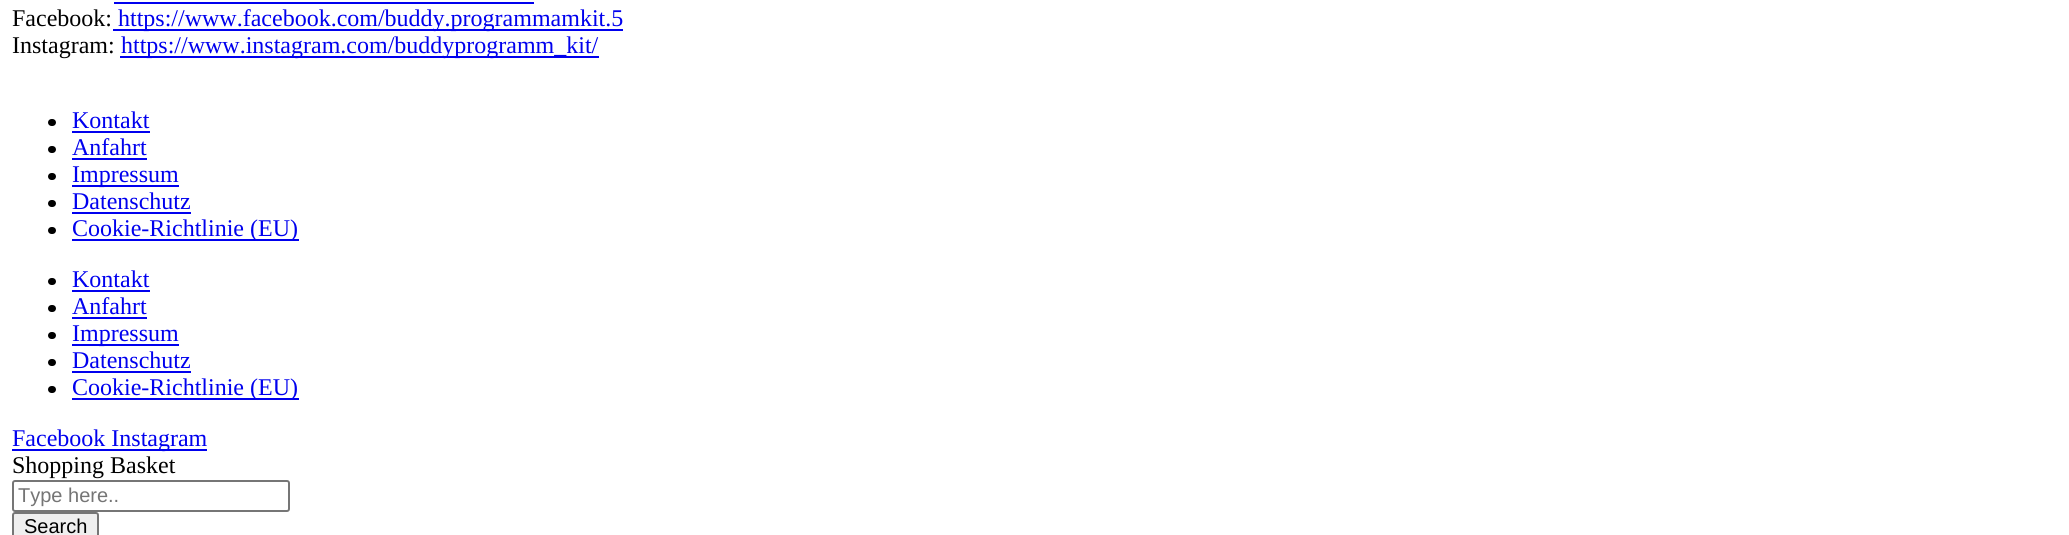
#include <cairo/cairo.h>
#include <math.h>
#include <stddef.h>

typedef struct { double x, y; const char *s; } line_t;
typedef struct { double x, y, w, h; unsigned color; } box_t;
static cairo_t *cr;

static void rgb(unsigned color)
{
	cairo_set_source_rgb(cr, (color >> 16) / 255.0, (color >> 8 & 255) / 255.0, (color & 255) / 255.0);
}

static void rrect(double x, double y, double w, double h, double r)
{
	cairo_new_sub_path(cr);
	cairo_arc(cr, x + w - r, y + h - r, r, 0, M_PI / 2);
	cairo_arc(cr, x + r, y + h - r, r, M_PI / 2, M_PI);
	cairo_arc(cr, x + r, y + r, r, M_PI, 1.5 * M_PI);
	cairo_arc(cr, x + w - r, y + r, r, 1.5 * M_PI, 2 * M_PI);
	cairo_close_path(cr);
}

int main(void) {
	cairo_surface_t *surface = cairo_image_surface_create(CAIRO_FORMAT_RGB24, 2069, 535);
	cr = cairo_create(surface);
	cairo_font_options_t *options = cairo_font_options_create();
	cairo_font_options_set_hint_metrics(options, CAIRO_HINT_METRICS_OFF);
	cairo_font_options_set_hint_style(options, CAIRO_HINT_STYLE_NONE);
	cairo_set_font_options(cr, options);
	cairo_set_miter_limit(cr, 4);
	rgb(0xffffff);
	cairo_paint(cr);
	{
		static const box_t items[] = {
			{114, 2, 420, 2, 0x0000ee},
			{113, 29, 510, 2, 0x0000ee},
			{120, 56, 479, 2, 0x0000ee},
		};
		for (size_t i = 0; i < sizeof items / sizeof *items; i++) {
			rgb(items[i].color);
			cairo_rectangle(cr, items[i].x, items[i].y, items[i].w, items[i].h);
			cairo_fill(cr);
		}
	}
	rgb(0x000000);
	rrect(48, 119, 8, 7, 3.5);
	cairo_fill(cr);
	rgb(0x0000ee);
	cairo_rectangle(cr, 72, 131, 78, 2);
	cairo_fill(cr);
	rgb(0x000000);
	rrect(48, 146, 8, 7, 3.5);
	cairo_fill(cr);
	rgb(0x0000ee);
	cairo_rectangle(cr, 72, 158, 75, 2);
	cairo_fill(cr);
	rgb(0x000000);
	rrect(48, 173, 8, 7, 3.5);
	cairo_fill(cr);
	rgb(0x0000ee);
	cairo_rectangle(cr, 72, 185, 107, 2);
	cairo_fill(cr);
	rgb(0x000000);
	rrect(48, 200, 8, 7, 3.5);
	cairo_fill(cr);
	rgb(0x0000ee);
	cairo_rectangle(cr, 72, 212, 119, 2);
	cairo_fill(cr);
	rgb(0x000000);
	rrect(48, 227, 8, 7, 3.5);
	cairo_fill(cr);
	rgb(0x0000ee);
	cairo_rectangle(cr, 72, 239, 227, 2);
	cairo_fill(cr);
	rgb(0x000000);
	rrect(48, 278, 8, 7, 3.5);
	cairo_fill(cr);
	rgb(0x0000ee);
	cairo_rectangle(cr, 72, 290, 78, 2);
	cairo_fill(cr);
	rgb(0x000000);
	rrect(48, 305, 8, 7, 3.5);
	cairo_fill(cr);
	rgb(0x0000ee);
	cairo_rectangle(cr, 72, 317, 75, 2);
	cairo_fill(cr);
	rgb(0x000000);
	rrect(48, 332, 8, 7, 3.5);
	cairo_fill(cr);
	rgb(0x0000ee);
	cairo_rectangle(cr, 72, 344, 107, 2);
	cairo_fill(cr);
	rgb(0x000000);
	rrect(48, 359, 8, 7, 3.5);
	cairo_fill(cr);
	rgb(0x0000ee);
	cairo_rectangle(cr, 72, 371, 119, 2);
	cairo_fill(cr);
	rgb(0x000000);
	rrect(48, 386, 8, 7, 3.5);
	cairo_fill(cr);
	rgb(0x0000ee);
	cairo_rectangle(cr, 72, 398, 227, 2);
	cairo_fill(cr);
	cairo_rectangle(cr, 12, 449, 195, 2);
	cairo_fill(cr);
	rrect(13, 481, 276, 30, 2);
	rgb(0x767676);
	cairo_stroke(cr);
	rgb(0xefefef);
	rrect(13, 513, 85, 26, 2);
	cairo_fill_preserve(cr);
	rgb(0x767676);
	cairo_stroke(cr);
	cairo_select_font_face(cr, "Liberation Serif", CAIRO_FONT_SLANT_NORMAL, CAIRO_FONT_WEIGHT_NORMAL);
	cairo_set_font_size(cr, 24);
	rgb(0x000000);
	cairo_move_to(cr, 12, 26);
	cairo_show_text(cr, "Facebook:");
	rgb(0x0000ee);
	cairo_move_to(cr, 118, 26);
	cairo_show_text(cr, "https://www.facebook.com/buddy.programmamkit.5");
	rgb(0x000000);
	cairo_move_to(cr, 12, 53);
	cairo_show_text(cr, "Instagram:");
	rgb(0x0000ee);
	{
		static const line_t items[] = {
			{121, 53, "https://www.instagram.com/buddyprogramm_kit/"},
			{72, 128, "Kontakt"},
			{72, 155, "Anfahrt"},
			{72, 182, "Impressum"},
			{72, 209, "Datenschutz"},
			{72, 236, "Cookie-Richtlinie (EU)"},
			{72, 287, "Kontakt"},
			{72, 314, "Anfahrt"},
			{72, 341, "Impressum"},
			{72, 368, "Datenschutz"},
			{72, 395, "Cookie-Richtlinie (EU)"},
			{12, 446, "Facebook Instagram"},
		};
		for (size_t i = 0; i < sizeof items / sizeof *items; i++) {
			cairo_move_to(cr, items[i].x, items[i].y);
			cairo_show_text(cr, items[i].s);
		}
	}
	rgb(0x000000);
	cairo_move_to(cr, 12, 473);
	cairo_show_text(cr, "Shopping Basket");
	cairo_select_font_face(cr, "Liberation Sans", CAIRO_FONT_SLANT_NORMAL, CAIRO_FONT_WEIGHT_NORMAL);
	cairo_set_font_size(cr, 20);
	rgb(0x757575);
	cairo_move_to(cr, 18, 502);
	cairo_show_text(cr, "Type here..");
	rgb(0x000000);
	cairo_move_to(cr, 24, 533);
	cairo_show_text(cr, "Search");
	cairo_surface_write_to_png(surface, "page.png");
	cairo_font_options_destroy(options);
	cairo_destroy(cr);
	cairo_surface_destroy(surface);
	return 0;
}
